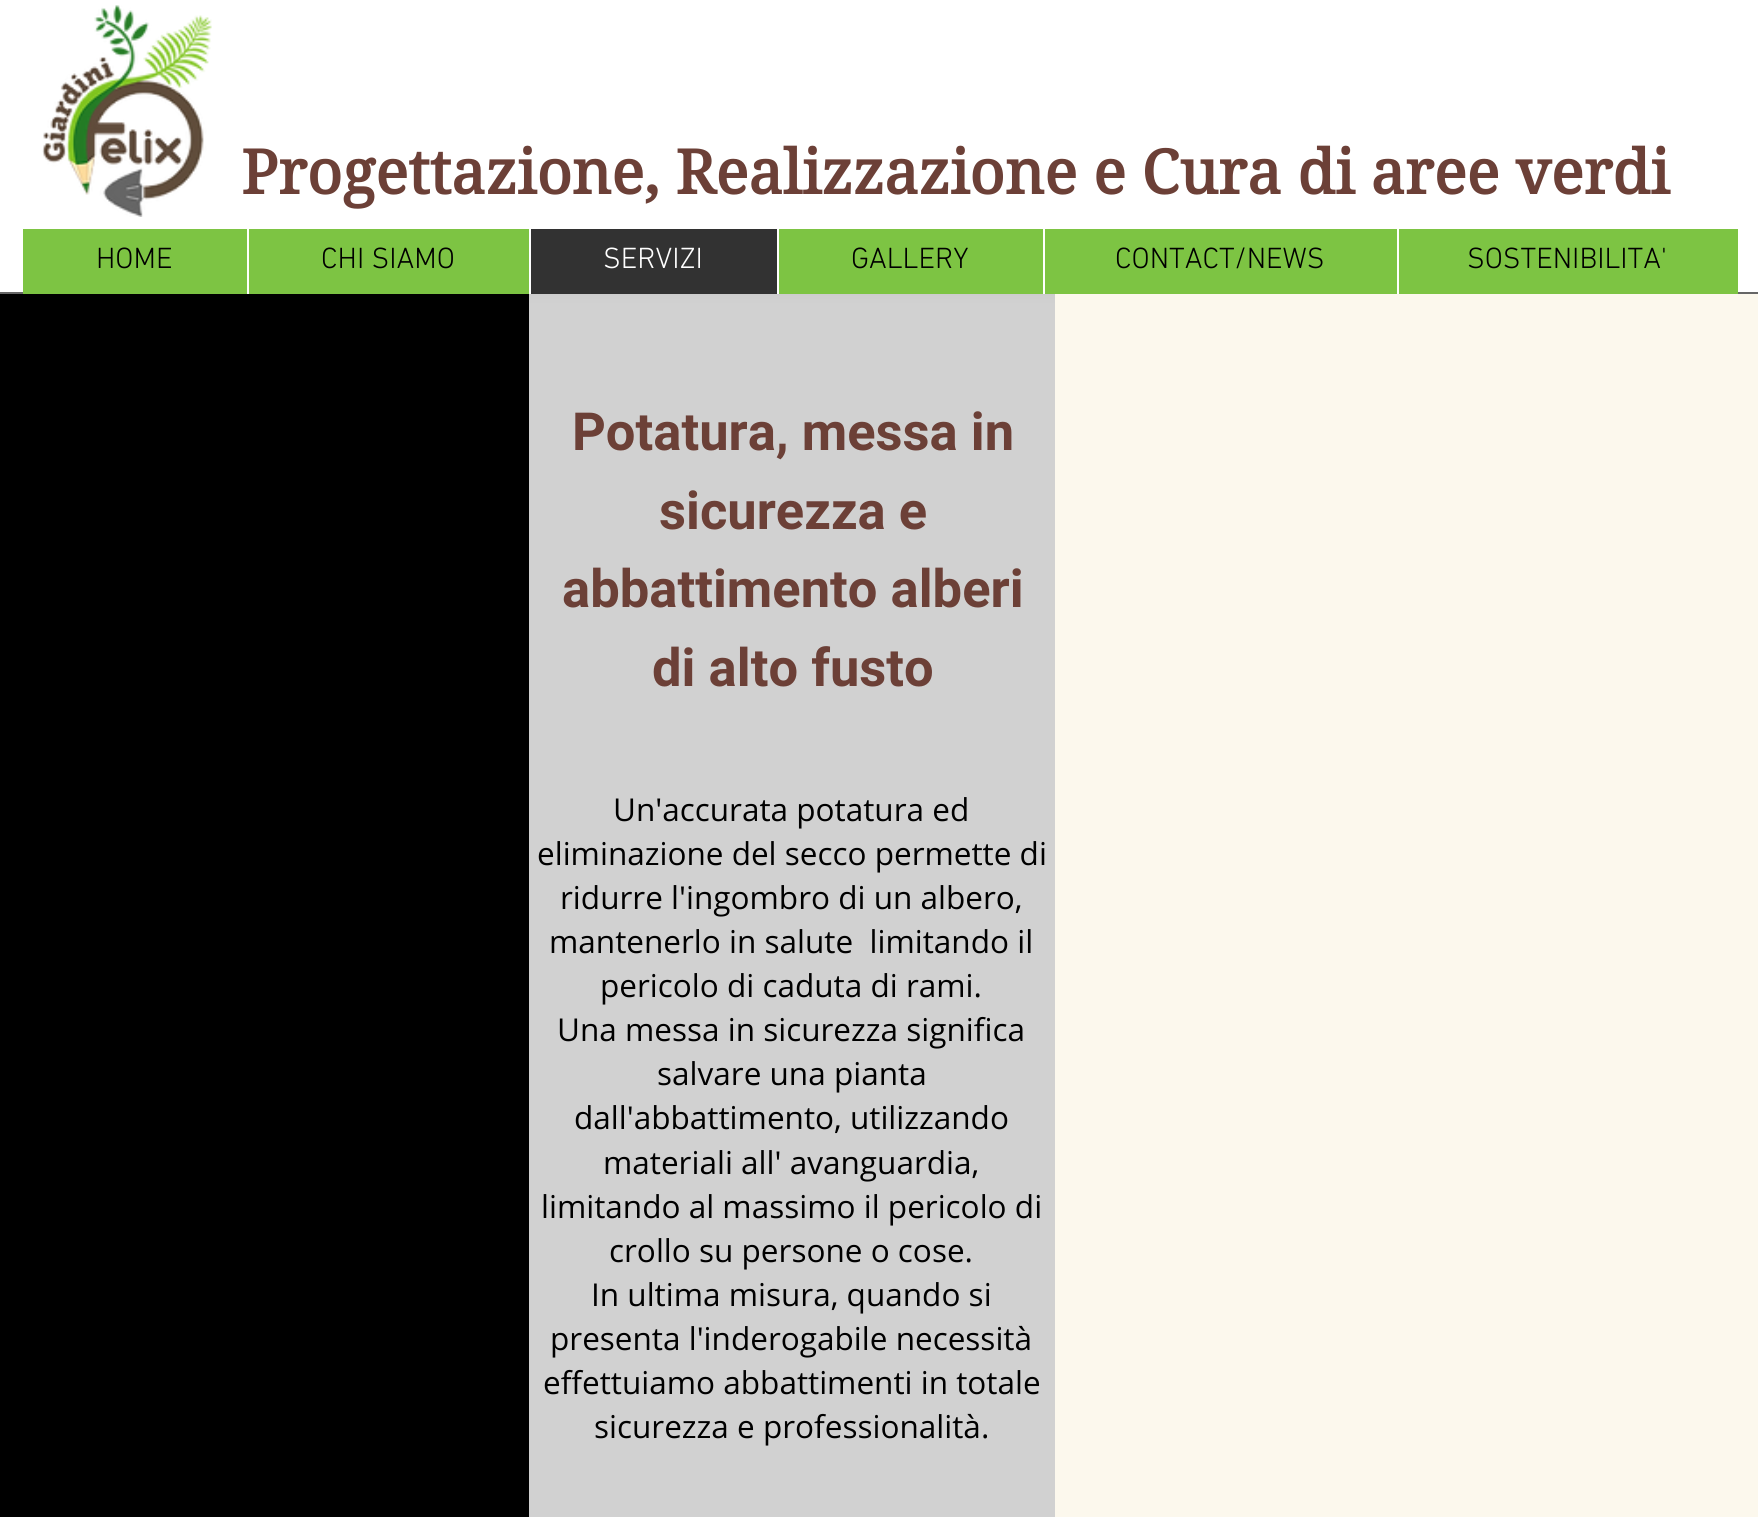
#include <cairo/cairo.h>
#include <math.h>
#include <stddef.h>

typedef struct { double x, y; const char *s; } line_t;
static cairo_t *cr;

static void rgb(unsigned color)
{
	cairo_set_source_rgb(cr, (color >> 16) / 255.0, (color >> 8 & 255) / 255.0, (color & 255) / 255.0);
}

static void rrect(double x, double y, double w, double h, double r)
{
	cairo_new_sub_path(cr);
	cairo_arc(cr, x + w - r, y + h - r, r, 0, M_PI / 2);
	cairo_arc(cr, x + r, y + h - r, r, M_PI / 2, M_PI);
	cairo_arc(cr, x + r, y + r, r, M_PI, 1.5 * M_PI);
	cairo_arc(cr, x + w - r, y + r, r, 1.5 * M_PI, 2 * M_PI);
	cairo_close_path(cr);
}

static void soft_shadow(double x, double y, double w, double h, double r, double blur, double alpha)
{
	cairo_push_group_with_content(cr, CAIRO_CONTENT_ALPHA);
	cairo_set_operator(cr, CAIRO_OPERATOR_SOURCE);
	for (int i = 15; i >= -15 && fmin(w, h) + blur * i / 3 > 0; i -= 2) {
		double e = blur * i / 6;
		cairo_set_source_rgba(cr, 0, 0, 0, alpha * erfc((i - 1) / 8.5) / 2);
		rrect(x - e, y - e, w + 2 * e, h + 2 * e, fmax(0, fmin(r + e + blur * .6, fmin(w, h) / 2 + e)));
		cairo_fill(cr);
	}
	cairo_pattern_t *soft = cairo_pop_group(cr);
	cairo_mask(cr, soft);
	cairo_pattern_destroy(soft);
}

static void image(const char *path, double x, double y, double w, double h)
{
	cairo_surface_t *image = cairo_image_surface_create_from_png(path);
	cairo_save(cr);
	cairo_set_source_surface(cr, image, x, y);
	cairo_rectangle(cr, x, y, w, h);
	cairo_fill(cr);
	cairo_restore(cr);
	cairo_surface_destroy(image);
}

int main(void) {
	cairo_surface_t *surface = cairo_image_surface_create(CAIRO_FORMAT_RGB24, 1758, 1517);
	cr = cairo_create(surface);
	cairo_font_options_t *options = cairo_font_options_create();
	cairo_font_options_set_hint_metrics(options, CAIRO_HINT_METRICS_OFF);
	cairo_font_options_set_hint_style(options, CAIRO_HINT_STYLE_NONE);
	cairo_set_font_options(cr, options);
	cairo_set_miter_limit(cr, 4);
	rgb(0x333333);
	cairo_paint(cr);
	rgb(0x000000);
	soft_shadow(0, 0, 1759, 294, 0, 4.5, 0.6);
	rgb(0xffffff);
	cairo_rectangle(cr, 0, 0, 1758, 292);
	cairo_fill(cr);
	rgb(0x666666);
	cairo_rectangle(cr, 0, 292, 1758, 2);
	cairo_fill(cr);
	image("img/1.png", 42, 5, 170, 212);
	rgb(0x7dc443);
	cairo_rectangle(cr, 23, 229, 1715, 65);
	cairo_fill(cr);
	rgb(0xffffff);
	cairo_rectangle(cr, 247, 229, 2, 65);
	cairo_fill(cr);
	rgb(0x323232);
	cairo_rectangle(cr, 531, 229, 246, 65);
	cairo_fill(cr);
	rgb(0xffffff);
	cairo_rectangle(cr, 529, 229, 2, 65);
	cairo_fill(cr);
	cairo_rectangle(cr, 777, 229, 2, 65);
	cairo_fill(cr);
	cairo_rectangle(cr, 1043, 229, 2, 65);
	cairo_fill(cr);
	cairo_rectangle(cr, 1397, 229, 2, 65);
	cairo_fill(cr);
	rgb(0x000000);
	cairo_rectangle(cr, 0, 294, 529, 1223);
	cairo_fill(cr);
	cairo_set_source_rgba(cr, 1, 1, 1, 0.77);
	cairo_rectangle(cr, 529, 294, 526, 1223);
	cairo_fill(cr);
	rgb(0xfcf8ed);
	cairo_rectangle(cr, 1055, 294, 703, 1223);
	cairo_fill(cr);
	cairo_select_font_face(cr, "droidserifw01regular", CAIRO_FONT_SLANT_NORMAL, CAIRO_FONT_WEIGHT_BOLD);
	cairo_set_font_size(cr, 61.25);
	rgb(0x6c4037);
	cairo_move_to(cr, 241, 194);
	cairo_show_text(cr, "Progettazione, Realizzazione e Cura di aree verdi");
	cairo_select_font_face(cr, "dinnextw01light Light", CAIRO_FONT_SLANT_NORMAL, CAIRO_FONT_WEIGHT_NORMAL);
	cairo_set_font_size(cr, 29.75);
	rgb(0x000000);
	cairo_move_to(cr, 96, 268);
	cairo_show_text(cr, "HOME");
	cairo_move_to(cr, 321, 268);
	cairo_show_text(cr, "CHI SIAMO");
	rgb(0xffffff);
	cairo_move_to(cr, 603, 268);
	cairo_show_text(cr, "SERVIZI");
	rgb(0x000000);
	{
		static const line_t items[] = {
			{851, 268, "GALLERY"},
			{1115, 268, "CONTACT/NEWS"},
			{1467, 268, "SOSTENIBILITA'"},
		};
		for (size_t i = 0; i < sizeof items / sizeof *items; i++) {
			cairo_move_to(cr, items[i].x, items[i].y);
			cairo_show_text(cr, items[i].s);
		}
	}
	cairo_select_font_face(cr, "Roboto", CAIRO_FONT_SLANT_NORMAL, CAIRO_FONT_WEIGHT_BOLD);
	cairo_set_font_size(cr, 52.5);
	rgb(0x6c4037);
	{
		static const line_t items[] = {
			{572, 450, "Potatura, messa in"},
			{659, 529, "sicurezza e"},
			{562, 607, "abbattimento alberi"},
			{652, 686, "di alto fusto"},
		};
		for (size_t i = 0; i < sizeof items / sizeof *items; i++) {
			cairo_move_to(cr, items[i].x, items[i].y);
			cairo_show_text(cr, items[i].s);
		}
	}
	cairo_select_font_face(cr, "Open Sans", CAIRO_FONT_SLANT_NORMAL, CAIRO_FONT_WEIGHT_NORMAL);
	cairo_set_font_size(cr, 31.5);
	rgb(0x000000);
	{
		static const line_t items[] = {
			{613, 821, "Un'accurata potatura ed"},
			{537, 865, "eliminazione del secco permette di"},
			{560, 909, "ridurre l'ingombro di un albero,"},
			{549, 953, "mantenerlo in salute  limitando il"},
			{600, 997, "pericolo di caduta di rami."},
			{557, 1041, "Una messa in sicurezza significa"},
			{657, 1085, "salvare una pianta"},
			{574, 1129, "dall'abbattimento, utilizzando"},
			{603, 1174, "materiali all' avanguardia,"},
			{541, 1218, "limitando al massimo il pericolo di"},
			{609, 1262, "crollo su persone o cose."},
			{591, 1306, "In ultima misura, quando si"},
			{550, 1350, "presenta l'inderogabile necessità"},
			{543, 1394, "effettuiamo abbattimenti in totale"},
			{594, 1438, "sicurezza e professionalità."},
		};
		for (size_t i = 0; i < sizeof items / sizeof *items; i++) {
			cairo_move_to(cr, items[i].x, items[i].y);
			cairo_show_text(cr, items[i].s);
		}
	}
	cairo_surface_write_to_png(surface, "page.png");
	cairo_font_options_destroy(options);
	cairo_destroy(cr);
	cairo_surface_destroy(surface);
	return 0;
}
